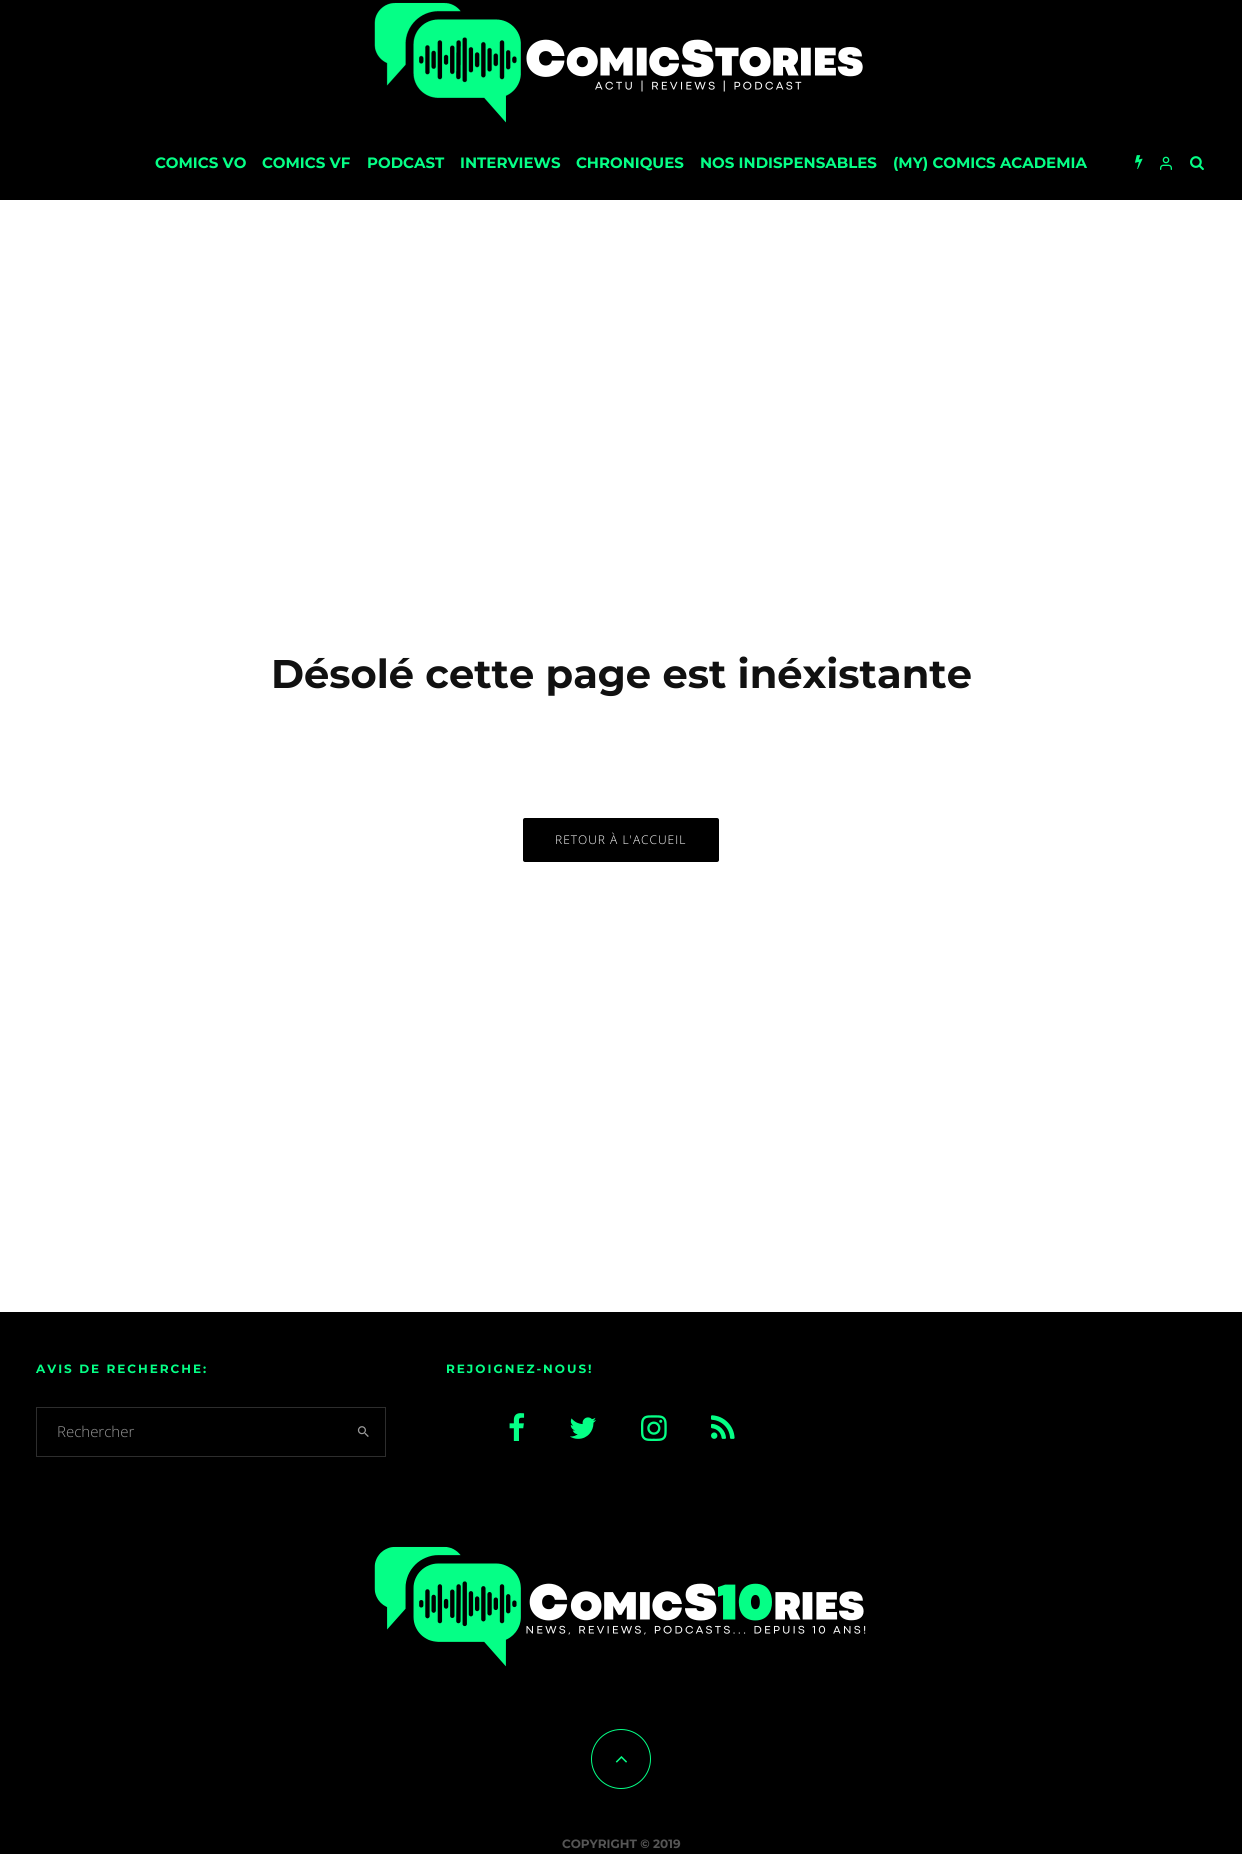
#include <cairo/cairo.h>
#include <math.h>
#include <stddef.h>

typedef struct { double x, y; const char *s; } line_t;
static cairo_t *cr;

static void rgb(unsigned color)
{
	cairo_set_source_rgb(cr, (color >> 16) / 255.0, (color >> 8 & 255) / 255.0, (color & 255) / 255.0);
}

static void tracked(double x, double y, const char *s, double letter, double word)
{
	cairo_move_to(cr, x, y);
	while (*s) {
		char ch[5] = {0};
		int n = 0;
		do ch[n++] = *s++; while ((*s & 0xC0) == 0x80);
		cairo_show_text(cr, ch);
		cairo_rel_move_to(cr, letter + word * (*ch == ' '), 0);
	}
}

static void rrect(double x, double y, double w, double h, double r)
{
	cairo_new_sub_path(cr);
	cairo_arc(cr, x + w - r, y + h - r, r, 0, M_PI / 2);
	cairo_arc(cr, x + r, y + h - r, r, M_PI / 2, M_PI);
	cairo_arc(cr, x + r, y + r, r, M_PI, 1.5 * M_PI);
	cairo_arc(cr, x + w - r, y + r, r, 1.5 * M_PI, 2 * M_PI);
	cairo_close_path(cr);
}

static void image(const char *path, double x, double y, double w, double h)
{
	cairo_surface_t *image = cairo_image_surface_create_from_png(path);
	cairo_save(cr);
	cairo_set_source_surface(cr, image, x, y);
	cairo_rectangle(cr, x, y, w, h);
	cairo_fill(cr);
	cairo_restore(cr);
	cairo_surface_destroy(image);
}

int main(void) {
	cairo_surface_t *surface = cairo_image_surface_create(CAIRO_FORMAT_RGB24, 1242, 1854);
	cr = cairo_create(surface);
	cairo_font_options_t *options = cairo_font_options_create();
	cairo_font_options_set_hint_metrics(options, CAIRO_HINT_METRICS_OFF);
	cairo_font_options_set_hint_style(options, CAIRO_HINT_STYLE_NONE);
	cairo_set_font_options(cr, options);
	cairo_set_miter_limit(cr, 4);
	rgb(0xffffff);
	cairo_paint(cr);
	rgb(0x000000);
	cairo_rectangle(cr, 0, 0, 1242, 200);
	cairo_fill(cr);
	image("img/1.png", 374, 2, 489, 121);
	image("img/2.png", 1135, 155, 8, 14);
	image("img/3.png", 1160, 156, 12, 14);
	image("img/4.png", 1190, 156, 14, 15);
	rrect(523, 818, 196, 44, 2);
	cairo_fill(cr);
	cairo_rectangle(cr, 0, 1312, 1242, 542);
	cairo_fill(cr);
	cairo_rectangle(cr, 36.5, 1407.5, 349, 49);
	rgb(0x2d2d2d);
	cairo_set_line_width(cr, 1);
	cairo_stroke(cr);
	image("img/5.png", 357, 1426, 12, 11);
	image("img/6.png", 509, 1413, 16, 28);
	image("img/7.png", 570, 1417, 26, 22);
	image("img/8.png", 641, 1415, 26, 26);
	image("img/9.png", 711, 1415, 24, 24);
	image("img/10.png", 374, 1546, 492, 121);
	cairo_arc(cr, 621, 1759, 29.5, 0, 2 * M_PI);
	rgb(0x05ff86);
	cairo_stroke(cr);
	image("img/11.png", 615, 1756, 12, 7);
	cairo_select_font_face(cr, "Montserrat", CAIRO_FONT_SLANT_NORMAL, CAIRO_FONT_WEIGHT_BOLD);
	cairo_set_font_size(cr, 15);
	{
		static const line_t items[] = {
			{155, 168, "COMICS VO"},
			{262, 168, "COMICS VF"},
			{367, 168, "PODCAST"},
			{460, 168, "INTERVIEWS"},
			{576, 168, "CHRONIQUES"},
			{700, 168, "NOS INDISPENSABLES"},
			{893, 168, "(MY) COMICS ACADEMIA"},
		};
		for (size_t i = 0; i < sizeof items / sizeof *items; i++) {
			cairo_move_to(cr, items[i].x, items[i].y);
			cairo_show_text(cr, items[i].s);
		}
	}
	cairo_set_font_size(cr, 40);
	rgb(0x111111);
	cairo_move_to(cr, 271, 688);
	cairo_show_text(cr, "Désolé cette page est inéxistante");
	cairo_select_font_face(cr, "Open Sans Light", CAIRO_FONT_SLANT_NORMAL, CAIRO_FONT_WEIGHT_NORMAL);
	cairo_set_font_size(cr, 12);
	rgb(0xffffff);
	tracked(555, 844, "RETOUR À L'ACCUEIL", 1, 0);
	cairo_select_font_face(cr, "Montserrat", CAIRO_FONT_SLANT_NORMAL, CAIRO_FONT_WEIGHT_BOLD);
	rgb(0x05ff86);
	tracked(36, 1373, "AVIS DE RECHERCHE:", 2, 0);
	cairo_select_font_face(cr, "Open Sans Light", CAIRO_FONT_SLANT_NORMAL, CAIRO_FONT_WEIGHT_NORMAL);
	cairo_set_font_size(cr, 15);
	rgb(0x999999);
	cairo_move_to(cr, 57, 1437);
	cairo_show_text(cr, "Rechercher");
	cairo_select_font_face(cr, "Montserrat", CAIRO_FONT_SLANT_NORMAL, CAIRO_FONT_WEIGHT_BOLD);
	cairo_set_font_size(cr, 12);
	rgb(0x05ff86);
	tracked(446, 1373, "REJOIGNEZ-NOUS!", 2, 0);
	rgb(0x555555);
	cairo_move_to(cr, 562, 1848);
	cairo_show_text(cr, "COPYRIGHT © 2019");
	cairo_surface_write_to_png(surface, "page.png");
	cairo_font_options_destroy(options);
	cairo_destroy(cr);
	cairo_surface_destroy(surface);
	return 0;
}
